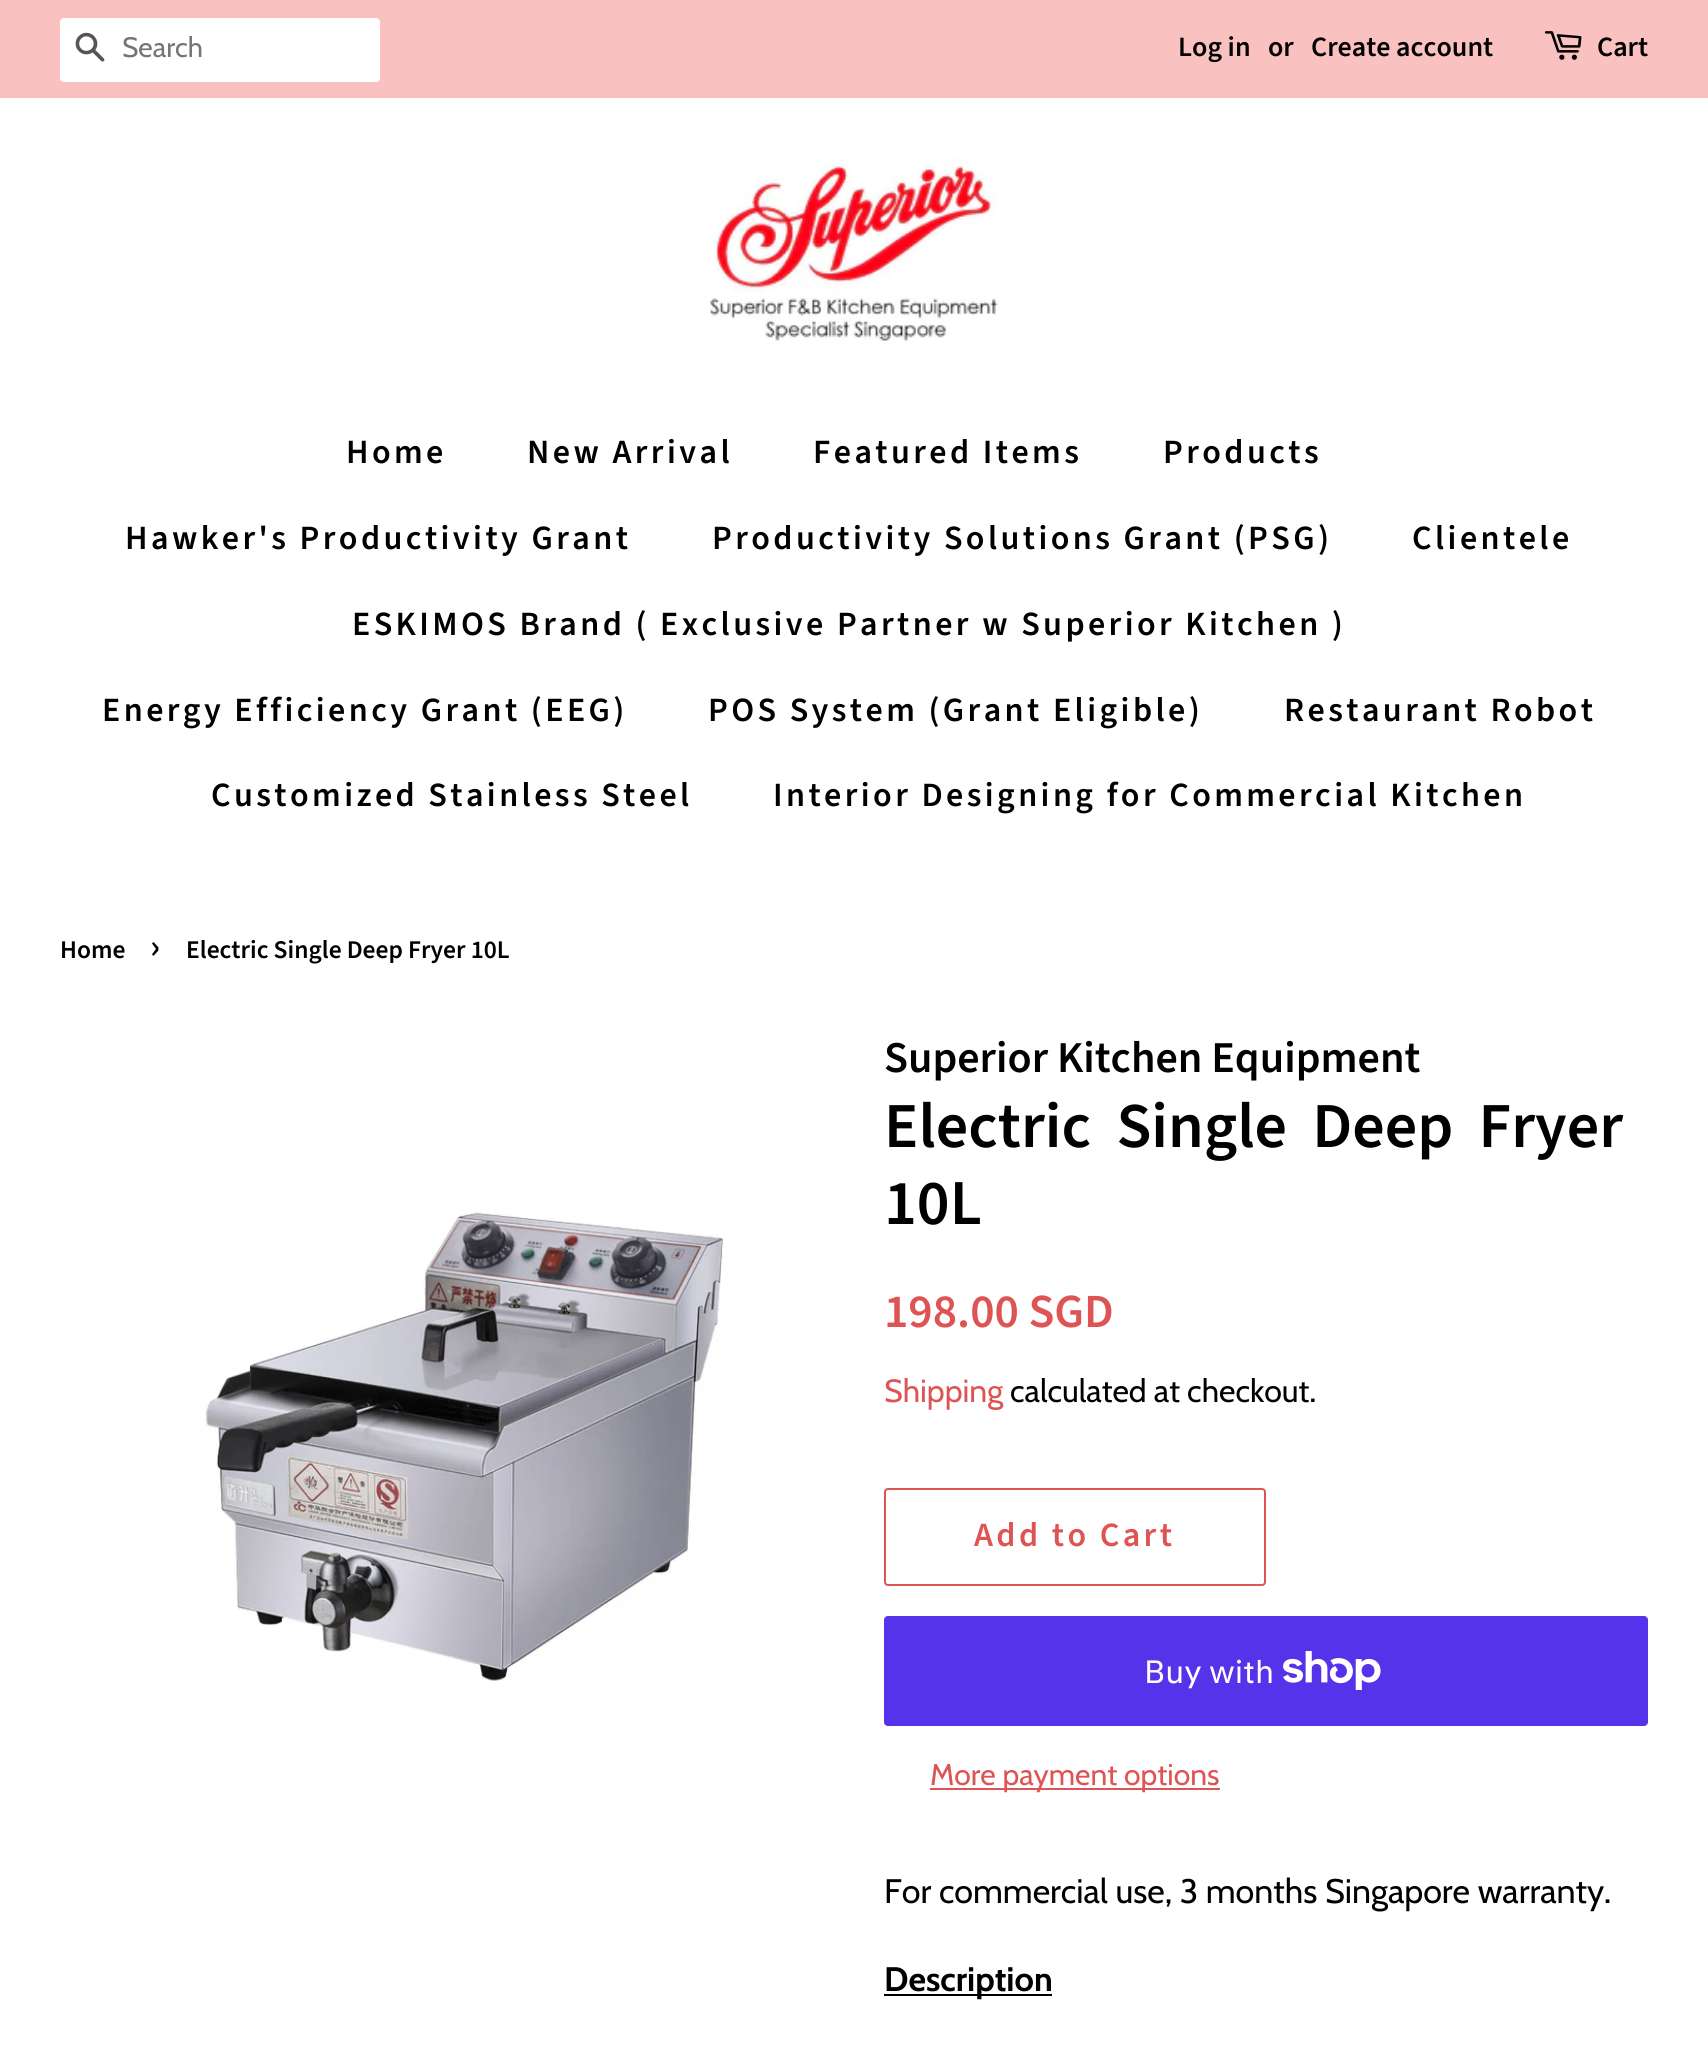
#include <cairo/cairo.h>
#include <math.h>
#include <stddef.h>

typedef struct { double x, y; const char *s; } line_t;
static cairo_t *cr;

static void rgb(unsigned color)
{
	cairo_set_source_rgb(cr, (color >> 16) / 255.0, (color >> 8 & 255) / 255.0, (color & 255) / 255.0);
}

static void tracked(double x, double y, const char *s, double letter, double word)
{
	cairo_move_to(cr, x, y);
	while (*s) {
		char ch[5] = {0};
		int n = 0;
		do ch[n++] = *s++; while ((*s & 0xC0) == 0x80);
		cairo_show_text(cr, ch);
		cairo_rel_move_to(cr, letter + word * (*ch == ' '), 0);
	}
}

static void rrect(double x, double y, double w, double h, double r)
{
	cairo_new_sub_path(cr);
	cairo_arc(cr, x + w - r, y + h - r, r, 0, M_PI / 2);
	cairo_arc(cr, x + r, y + h - r, r, M_PI / 2, M_PI);
	cairo_arc(cr, x + r, y + r, r, M_PI, 1.5 * M_PI);
	cairo_arc(cr, x + w - r, y + r, r, 1.5 * M_PI, 2 * M_PI);
	cairo_close_path(cr);
}

static void image(const char *path, double x, double y, double w, double h)
{
	cairo_surface_t *image = cairo_image_surface_create_from_png(path);
	cairo_save(cr);
	cairo_set_source_surface(cr, image, x, y);
	cairo_rectangle(cr, x, y, w, h);
	cairo_fill(cr);
	cairo_restore(cr);
	cairo_surface_destroy(image);
}

int main(void) {
	cairo_surface_t *surface = cairo_image_surface_create(CAIRO_FORMAT_RGB24, 1708, 2049);
	cr = cairo_create(surface);
	cairo_font_options_t *options = cairo_font_options_create();
	cairo_font_options_set_hint_metrics(options, CAIRO_HINT_METRICS_OFF);
	cairo_font_options_set_hint_style(options, CAIRO_HINT_STYLE_NONE);
	cairo_set_font_options(cr, options);
	cairo_set_miter_limit(cr, 4);
	rgb(0xffffff);
	cairo_paint(cr);
	rgb(0xfac1c1);
	cairo_rectangle(cr, 0, 0, 1708, 98);
	cairo_fill(cr);
	rgb(0xffffff);
	rrect(60, 18, 320, 64, 4);
	cairo_fill(cr);
	image("img/1.png", 75, 32, 30, 30);
	image("img/2.png", 1544, 31, 38, 29);
	image("img/3.png", 710, 158, 288, 186);
	image("img/4.png", 205, 1211, 518, 470);
	rrect(885, 1489, 380, 96, 3);
	rgb(0xde5353);
	cairo_stroke(cr);
	rgb(0x5433eb);
	rrect(884, 1616, 764, 110, 4);
	cairo_fill(cr);
	image("img/5.png", 1283, 1651, 98, 39);
	rgb(0xde5353);
	cairo_rectangle(cr, 930, 1788, 290, 2);
	cairo_fill(cr);
	rgb(0x000000);
	cairo_rectangle(cr, 884, 1994, 168, 2);
	cairo_fill(cr);
	cairo_select_font_face(cr, "Cabin", CAIRO_FONT_SLANT_NORMAL, CAIRO_FONT_WEIGHT_NORMAL);
	cairo_set_font_size(cr, 28);
	rgb(0x757575);
	cairo_move_to(cr, 122, 57);
	cairo_show_text(cr, "Search");
	cairo_select_font_face(cr, "Source Sans Pro SemiBold", CAIRO_FONT_SLANT_NORMAL, CAIRO_FONT_WEIGHT_NORMAL);
	rgb(0x000000);
	{
		static const line_t items[] = {
			{1178, 56, "Log in"},
			{1268, 56, "or"},
			{1311, 56, "Create account"},
			{1597, 56, "Cart"},
		};
		for (size_t i = 0; i < sizeof items / sizeof *items; i++) {
			cairo_move_to(cr, items[i].x, items[i].y);
			cairo_show_text(cr, items[i].s);
		}
	}
	cairo_set_font_size(cr, 34);
	{
		static const line_t items[] = {
			{346, 463, "Home"},
			{527, 463, "New Arrival"},
			{813, 463, "Featured Items"},
			{1163, 463, "Products"},
			{125, 549, "Hawker's Productivity Grant"},
			{712, 549, "Productivity Solutions Grant (PSG)"},
			{1412, 549, "Clientele"},
			{352, 635, "ESKIMOS Brand ( Exclusive Partner w Superior Kitchen )"},
			{102, 721, "Energy Efficiency Grant (EEG)"},
			{708, 721, "POS System (Grant Eligible)"},
			{1284, 721, "Restaurant Robot"},
			{211, 806, "Customized Stainless Steel"},
			{773, 806, "Interior Designing for Commercial Kitchen"},
		};
		for (size_t i = 0; i < sizeof items / sizeof *items; i++) {
			tracked(items[i].x, items[i].y, items[i].s, 3.4, 0);
		}
	}
	cairo_set_font_size(cr, 25.5);
	cairo_move_to(cr, 60, 958);
	cairo_show_text(cr, "Home");
	cairo_set_font_size(cr, 36);
	cairo_move_to(cr, 150, 958);
	cairo_show_text(cr, "›");
	cairo_set_font_size(cr, 25.5);
	cairo_move_to(cr, 186, 958);
	cairo_show_text(cr, "Electric Single Deep Fryer 10L");
	cairo_set_font_size(cr, 44);
	cairo_move_to(cr, 884, 1072);
	cairo_show_text(cr, "Superior Kitchen Equipment");
	cairo_set_font_size(cr, 64);
	tracked(884, 1147, "Electric Single Deep Fryer", 0, 12.5);
	cairo_move_to(cr, 884, 1224);
	cairo_show_text(cr, "10L");
	cairo_set_font_size(cr, 47.5);
	rgb(0xde5353);
	cairo_move_to(cr, 884, 1327);
	cairo_show_text(cr, "198.00 SGD");
	cairo_select_font_face(cr, "Cabin", CAIRO_FONT_SLANT_NORMAL, CAIRO_FONT_WEIGHT_NORMAL);
	cairo_set_font_size(cr, 32);
	cairo_move_to(cr, 884, 1402);
	cairo_show_text(cr, "Shipping");
	rgb(0x000000);
	cairo_move_to(cr, 1010, 1402);
	cairo_show_text(cr, "calculated at checkout.");
	cairo_select_font_face(cr, "Source Sans Pro SemiBold", CAIRO_FONT_SLANT_NORMAL, CAIRO_FONT_WEIGHT_NORMAL);
	cairo_set_font_size(cr, 34);
	rgb(0xde5353);
	tracked(974, 1546, "Add to Cart", 3.4, 0);
	cairo_select_font_face(cr, "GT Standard", CAIRO_FONT_SLANT_NORMAL, CAIRO_FONT_WEIGHT_NORMAL);
	cairo_set_font_size(cr, 32);
	rgb(0xffffff);
	cairo_move_to(cr, 1144, 1683);
	cairo_show_text(cr, "Buy with");
	cairo_select_font_face(cr, "Cabin", CAIRO_FONT_SLANT_NORMAL, CAIRO_FONT_WEIGHT_NORMAL);
	cairo_set_font_size(cr, 30);
	rgb(0xde5353);
	cairo_move_to(cr, 930, 1785);
	cairo_show_text(cr, "More payment options");
	cairo_set_font_size(cr, 34);
	rgb(0x000000);
	cairo_move_to(cr, 884, 1903);
	cairo_show_text(cr, "For commercial use, 3 months Singapore warranty.");
	cairo_select_font_face(cr, "Cabin", CAIRO_FONT_SLANT_NORMAL, CAIRO_FONT_WEIGHT_BOLD);
	cairo_move_to(cr, 884, 1991);
	cairo_show_text(cr, "Description");
	cairo_surface_write_to_png(surface, "page.png");
	cairo_font_options_destroy(options);
	cairo_destroy(cr);
	cairo_surface_destroy(surface);
	return 0;
}
